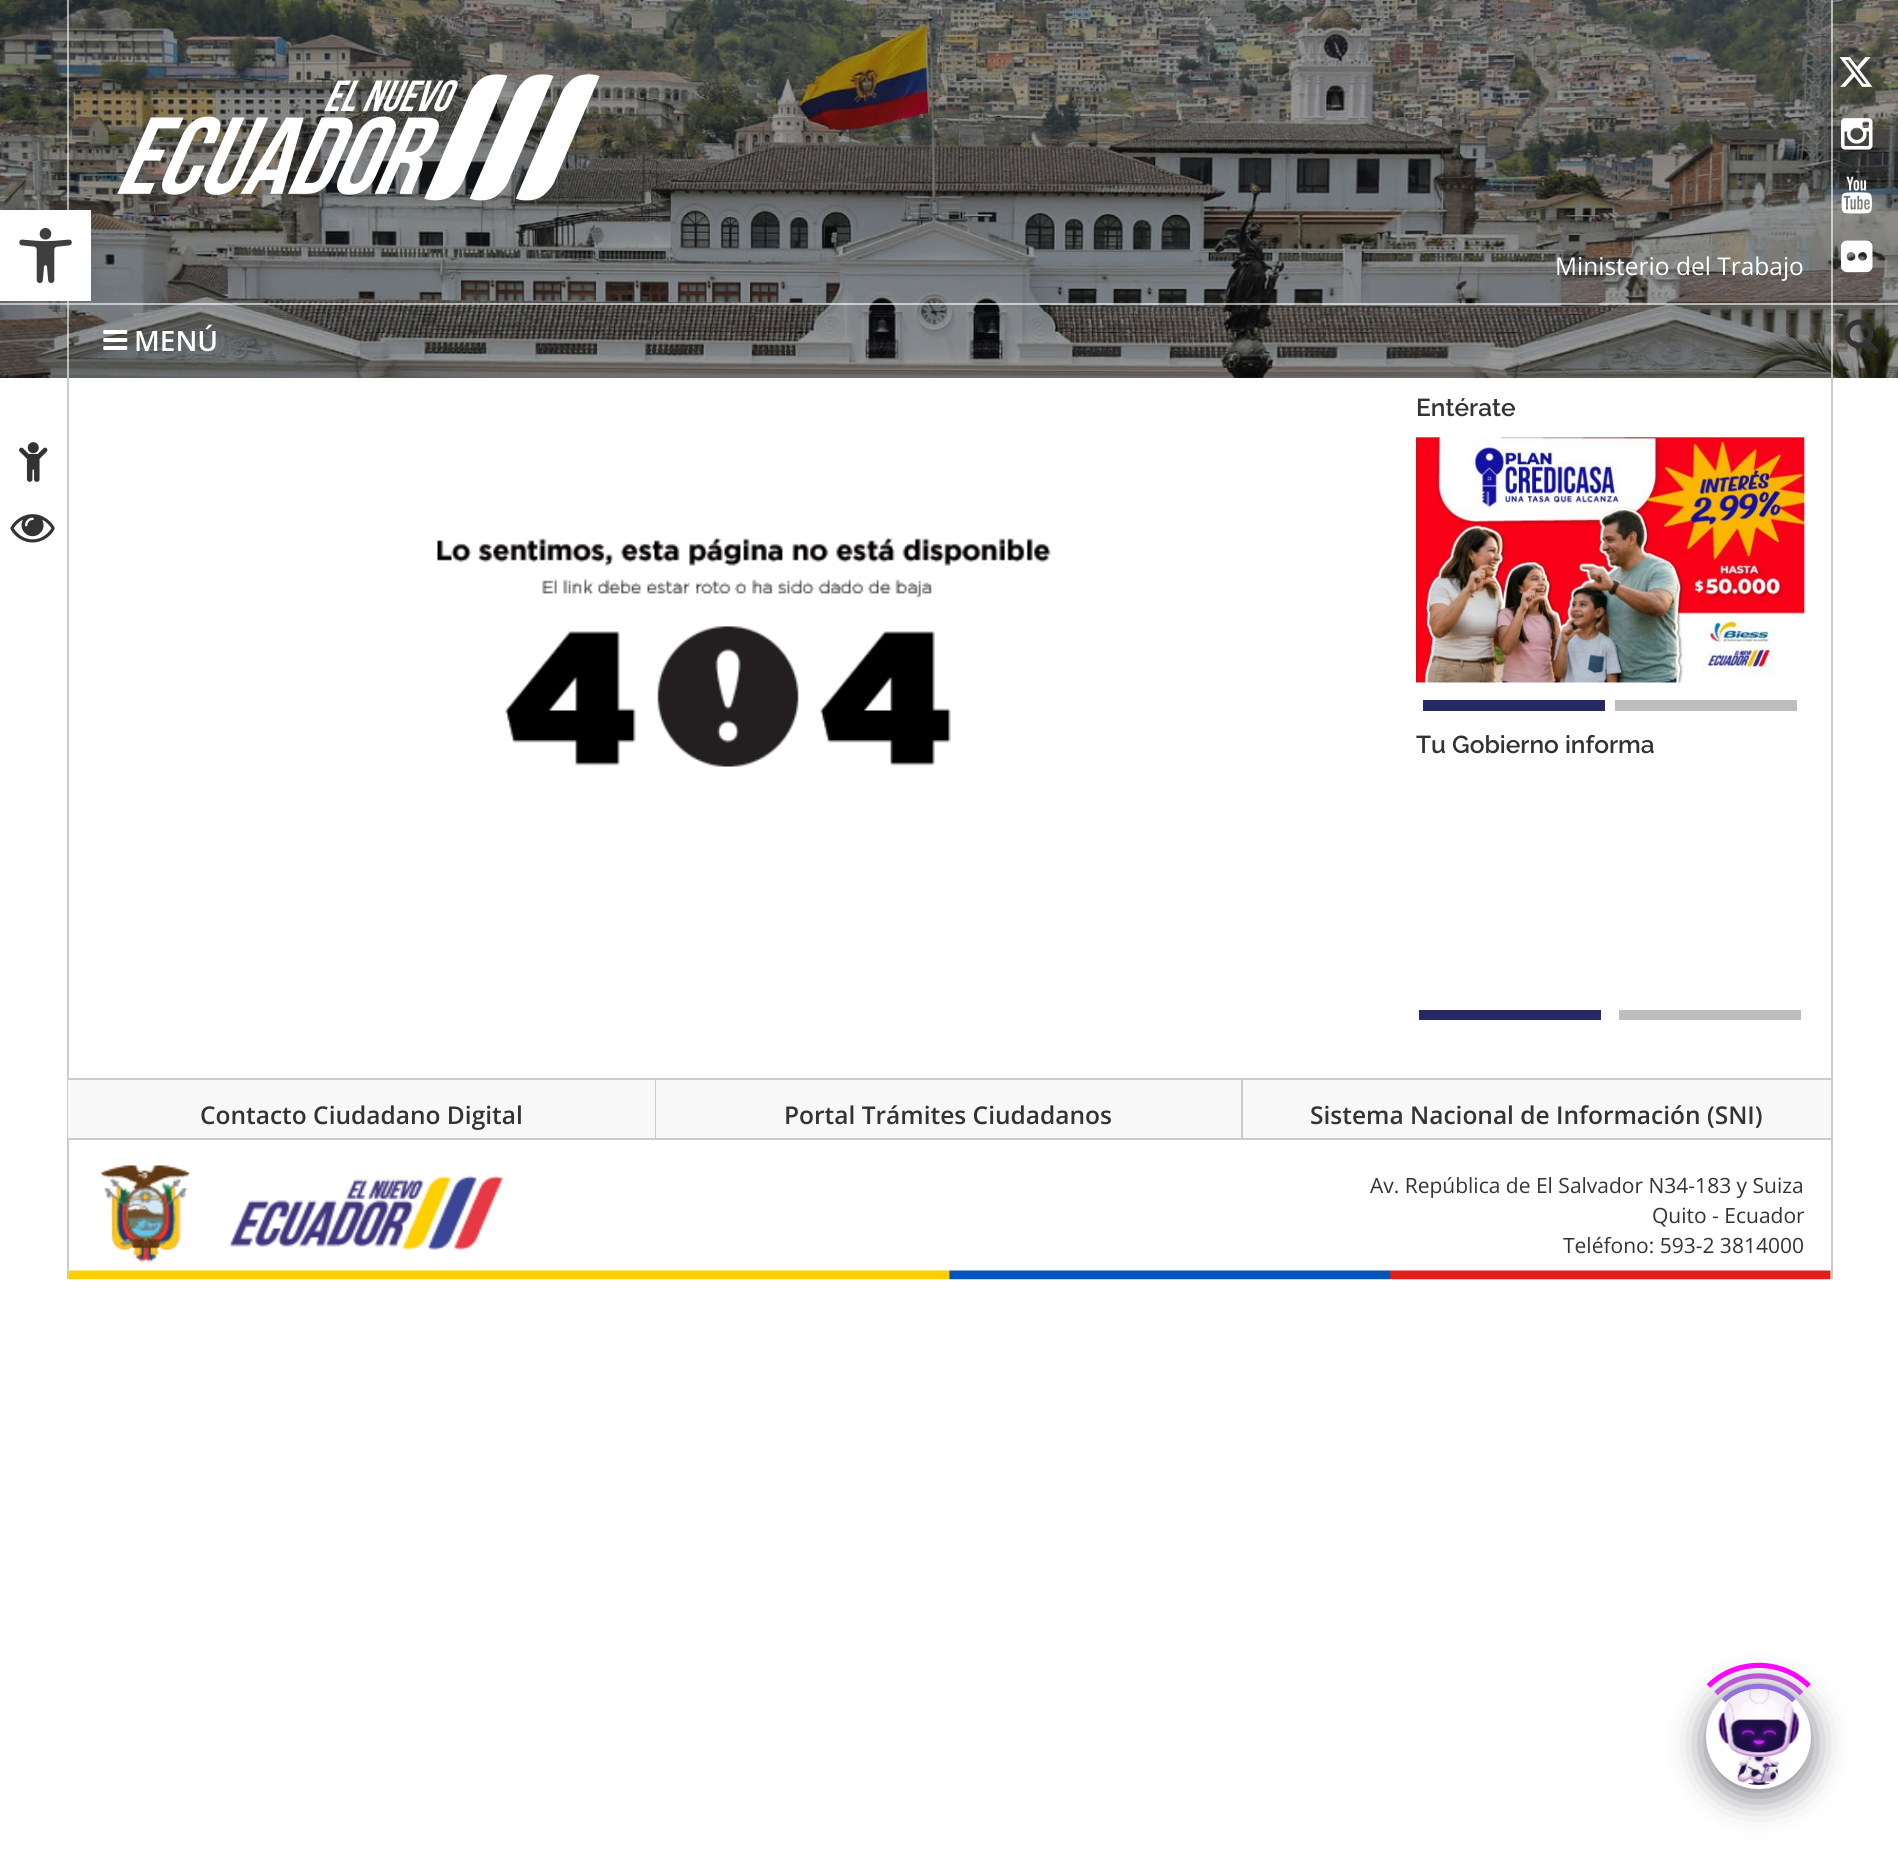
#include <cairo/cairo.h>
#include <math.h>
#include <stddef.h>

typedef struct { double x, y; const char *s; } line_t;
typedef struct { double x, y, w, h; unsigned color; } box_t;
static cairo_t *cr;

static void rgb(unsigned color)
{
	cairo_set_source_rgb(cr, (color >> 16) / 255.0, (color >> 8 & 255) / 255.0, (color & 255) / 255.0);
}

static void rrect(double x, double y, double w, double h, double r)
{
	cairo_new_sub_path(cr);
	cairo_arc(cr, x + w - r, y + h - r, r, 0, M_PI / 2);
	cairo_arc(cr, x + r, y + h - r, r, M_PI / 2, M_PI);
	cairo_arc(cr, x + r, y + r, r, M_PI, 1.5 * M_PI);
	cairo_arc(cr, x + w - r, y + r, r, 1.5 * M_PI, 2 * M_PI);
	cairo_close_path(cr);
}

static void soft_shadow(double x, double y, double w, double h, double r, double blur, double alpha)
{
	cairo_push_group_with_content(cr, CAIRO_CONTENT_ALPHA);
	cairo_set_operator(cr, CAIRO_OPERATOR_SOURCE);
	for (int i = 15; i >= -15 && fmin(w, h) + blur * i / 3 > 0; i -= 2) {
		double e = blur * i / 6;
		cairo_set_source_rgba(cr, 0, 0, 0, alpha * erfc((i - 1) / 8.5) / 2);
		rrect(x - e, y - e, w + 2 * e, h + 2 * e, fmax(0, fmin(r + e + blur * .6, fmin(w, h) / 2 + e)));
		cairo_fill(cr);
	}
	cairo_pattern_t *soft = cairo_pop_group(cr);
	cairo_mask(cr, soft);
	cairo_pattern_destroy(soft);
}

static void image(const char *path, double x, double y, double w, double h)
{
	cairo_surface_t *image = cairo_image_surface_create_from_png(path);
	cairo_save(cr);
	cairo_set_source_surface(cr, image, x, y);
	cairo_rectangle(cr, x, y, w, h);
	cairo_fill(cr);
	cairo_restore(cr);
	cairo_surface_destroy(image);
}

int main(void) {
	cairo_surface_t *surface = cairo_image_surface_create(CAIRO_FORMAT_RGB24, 1898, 1875);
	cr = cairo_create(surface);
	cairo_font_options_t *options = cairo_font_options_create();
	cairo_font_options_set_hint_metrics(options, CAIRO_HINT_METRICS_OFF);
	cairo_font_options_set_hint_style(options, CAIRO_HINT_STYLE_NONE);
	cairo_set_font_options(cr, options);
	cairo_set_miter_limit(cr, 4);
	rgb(0xffffff);
	cairo_paint(cr);
	image("img/2.png", 0, 0, 1898, 378);
	cairo_set_source_rgba(cr, 1, 1, 1, 0.6);
	cairo_rectangle(cr, 67, 0, 2, 378);
	cairo_fill(cr);
	image("img/3.png", 117, 74, 483, 127);
	cairo_rectangle(cr, 1831, 0, 2, 378);
	cairo_fill(cr);
	cairo_rectangle(cr, 0, 303, 1898, 2);
	cairo_fill(cr);
	rgb(0x000000);
	soft_shadow(0, 210, 91, 91, 0, 9, 0.1);
	rgb(0xffffff);
	cairo_rectangle(cr, 0, 210, 91, 91);
	cairo_fill(cr);
	image("img/1.png", 19, 228, 53, 56);
	image("img/4.png", 1839, 57, 34, 30);
	image("img/5.png", 1841, 118, 32, 32);
	image("img/6.png", 1841, 176, 31, 38);
	image("img/7.png", 1841, 240, 32, 33);
	image("img/8.png", 103, 330, 25, 20);
	image("img/9.png", 1844, 319, 35, 35);
	image("img/10.png", 19, 442, 29, 40);
	image("img/11.png", 10, 514, 45, 29);
	image("img/12.png", 437, 537, 614, 230);
	image("img/13.png", 1416, 437, 389, 246);
	{
		static const box_t items[] = {
			{1423, 700, 182, 11, 0x272965},
			{1615, 700, 182, 11, 0xbebebe},
			{1419, 1010, 182, 10, 0x272965},
			{1619, 1010, 182, 10, 0xbebebe},
		};
		for (size_t i = 0; i < sizeof items / sizeof *items; i++) {
			rgb(items[i].color);
			cairo_rectangle(cr, items[i].x, items[i].y, items[i].w, items[i].h);
			cairo_fill(cr);
		}
	}
	image("img/14.png", 68, 1270, 1763, 10);
	{
		static const box_t items[] = {
			{1831, 378, 2, 901, 0xcccccc},
			{67, 378, 2, 901, 0xcccccc},
			{68, 1078, 1763, 2, 0xcccccc},
			{68, 1138, 1763, 2, 0xcccccc},
			{655, 1080, 1, 58, 0xcccccc},
			{68, 1080, 587, 58, 0xf8f8f8},
			{1241, 1080, 2, 58, 0xcccccc},
			{656, 1080, 585, 58, 0xf8f8f8},
			{1243, 1080, 588, 58, 0xf8f8f8},
		};
		for (size_t i = 0; i < sizeof items / sizeof *items; i++) {
			rgb(items[i].color);
			cairo_rectangle(cr, items[i].x, items[i].y, items[i].w, items[i].h);
			cairo_fill(cr);
		}
	}
	image("img/15.png", 101, 1165, 402, 98);
	rgb(0x767580);
	soft_shadow(1706, 1691, 105, 105, 52.5, 17.5, 1);
	rgb(0xffffff);
	cairo_arc(cr, 1758.5, 1736.5, 52.5, 0, 2 * M_PI);
	cairo_fill(cr);
	image("img/16.png", 1717, 1689, 83, 96);
	cairo_new_path(cr);
	cairo_move_to(cr, 1723.5, 1700.5);
	cairo_curve_to(cr, 1742.5, 1681.5, 1775, 1681.5, 1794, 1700.5);
	cairo_set_source_rgba(cr, 0.576, 0.439, 0.859, 0.98);
	cairo_set_line_width(cr, 5.2);
	cairo_stroke(cr);
	cairo_new_path(cr);
	cairo_move_to(cr, 1716, 1693.5);
	cairo_curve_to(cr, 1739.5, 1670, 1778, 1670, 1801.5, 1693.5);
	cairo_set_source_rgba(cr, 0.729, 0.333, 0.827, 0.98);
	cairo_stroke(cr);
	cairo_new_path(cr);
	cairo_move_to(cr, 1708.5, 1686);
	cairo_curve_to(cr, 1736, 1658.5, 1781.5, 1658.5, 1809, 1686);
	cairo_set_source_rgba(cr, 1, 0, 1, 0.98);
	cairo_stroke(cr);
	cairo_select_font_face(cr, "Open Sans", CAIRO_FONT_SLANT_NORMAL, CAIRO_FONT_WEIGHT_NORMAL);
	cairo_set_font_size(cr, 24.5);
	rgb(0xffffff);
	cairo_move_to(cr, 1555, 275);
	cairo_show_text(cr, "Ministerio del Trabajo");
	cairo_select_font_face(cr, "Open Sans SemiBold", CAIRO_FONT_SLANT_NORMAL, CAIRO_FONT_WEIGHT_NORMAL);
	cairo_set_font_size(cr, 28);
	cairo_move_to(cr, 134, 351);
	cairo_show_text(cr, "MENÚ");
	cairo_select_font_face(cr, "Raleway Thin", CAIRO_FONT_SLANT_NORMAL, CAIRO_FONT_WEIGHT_NORMAL);
	cairo_set_font_size(cr, 24.5);
	rgb(0x333333);
	cairo_move_to(cr, 1416, 416);
	cairo_show_text(cr, "Entérate");
	cairo_move_to(cr, 1416, 753);
	cairo_show_text(cr, "Tu Gobierno informa");
	cairo_select_font_face(cr, "Open Sans SemiBold", CAIRO_FONT_SLANT_NORMAL, CAIRO_FONT_WEIGHT_NORMAL);
	{
		static const line_t items[] = {
			{200, 1124, "Contacto Ciudadano Digital"},
			{784, 1124, "Portal Trámites Ciudadanos"},
			{1310, 1124, "Sistema Nacional de Información (SNI)"},
		};
		for (size_t i = 0; i < sizeof items / sizeof *items; i++) {
			cairo_move_to(cr, items[i].x, items[i].y);
			cairo_show_text(cr, items[i].s);
		}
	}
	cairo_select_font_face(cr, "Open Sans", CAIRO_FONT_SLANT_NORMAL, CAIRO_FONT_WEIGHT_NORMAL);
	cairo_set_font_size(cr, 21);
	{
		static const line_t items[] = {
			{1370, 1193, "Av. República de El Salvador N34-183 y Suiza"},
			{1652, 1223, "Quito - Ecuador"},
			{1563, 1253, "Teléfono: 593-2 3814000"},
		};
		for (size_t i = 0; i < sizeof items / sizeof *items; i++) {
			cairo_move_to(cr, items[i].x, items[i].y);
			cairo_show_text(cr, items[i].s);
		}
	}
	cairo_surface_write_to_png(surface, "page.png");
	cairo_font_options_destroy(options);
	cairo_destroy(cr);
	cairo_surface_destroy(surface);
	return 0;
}
